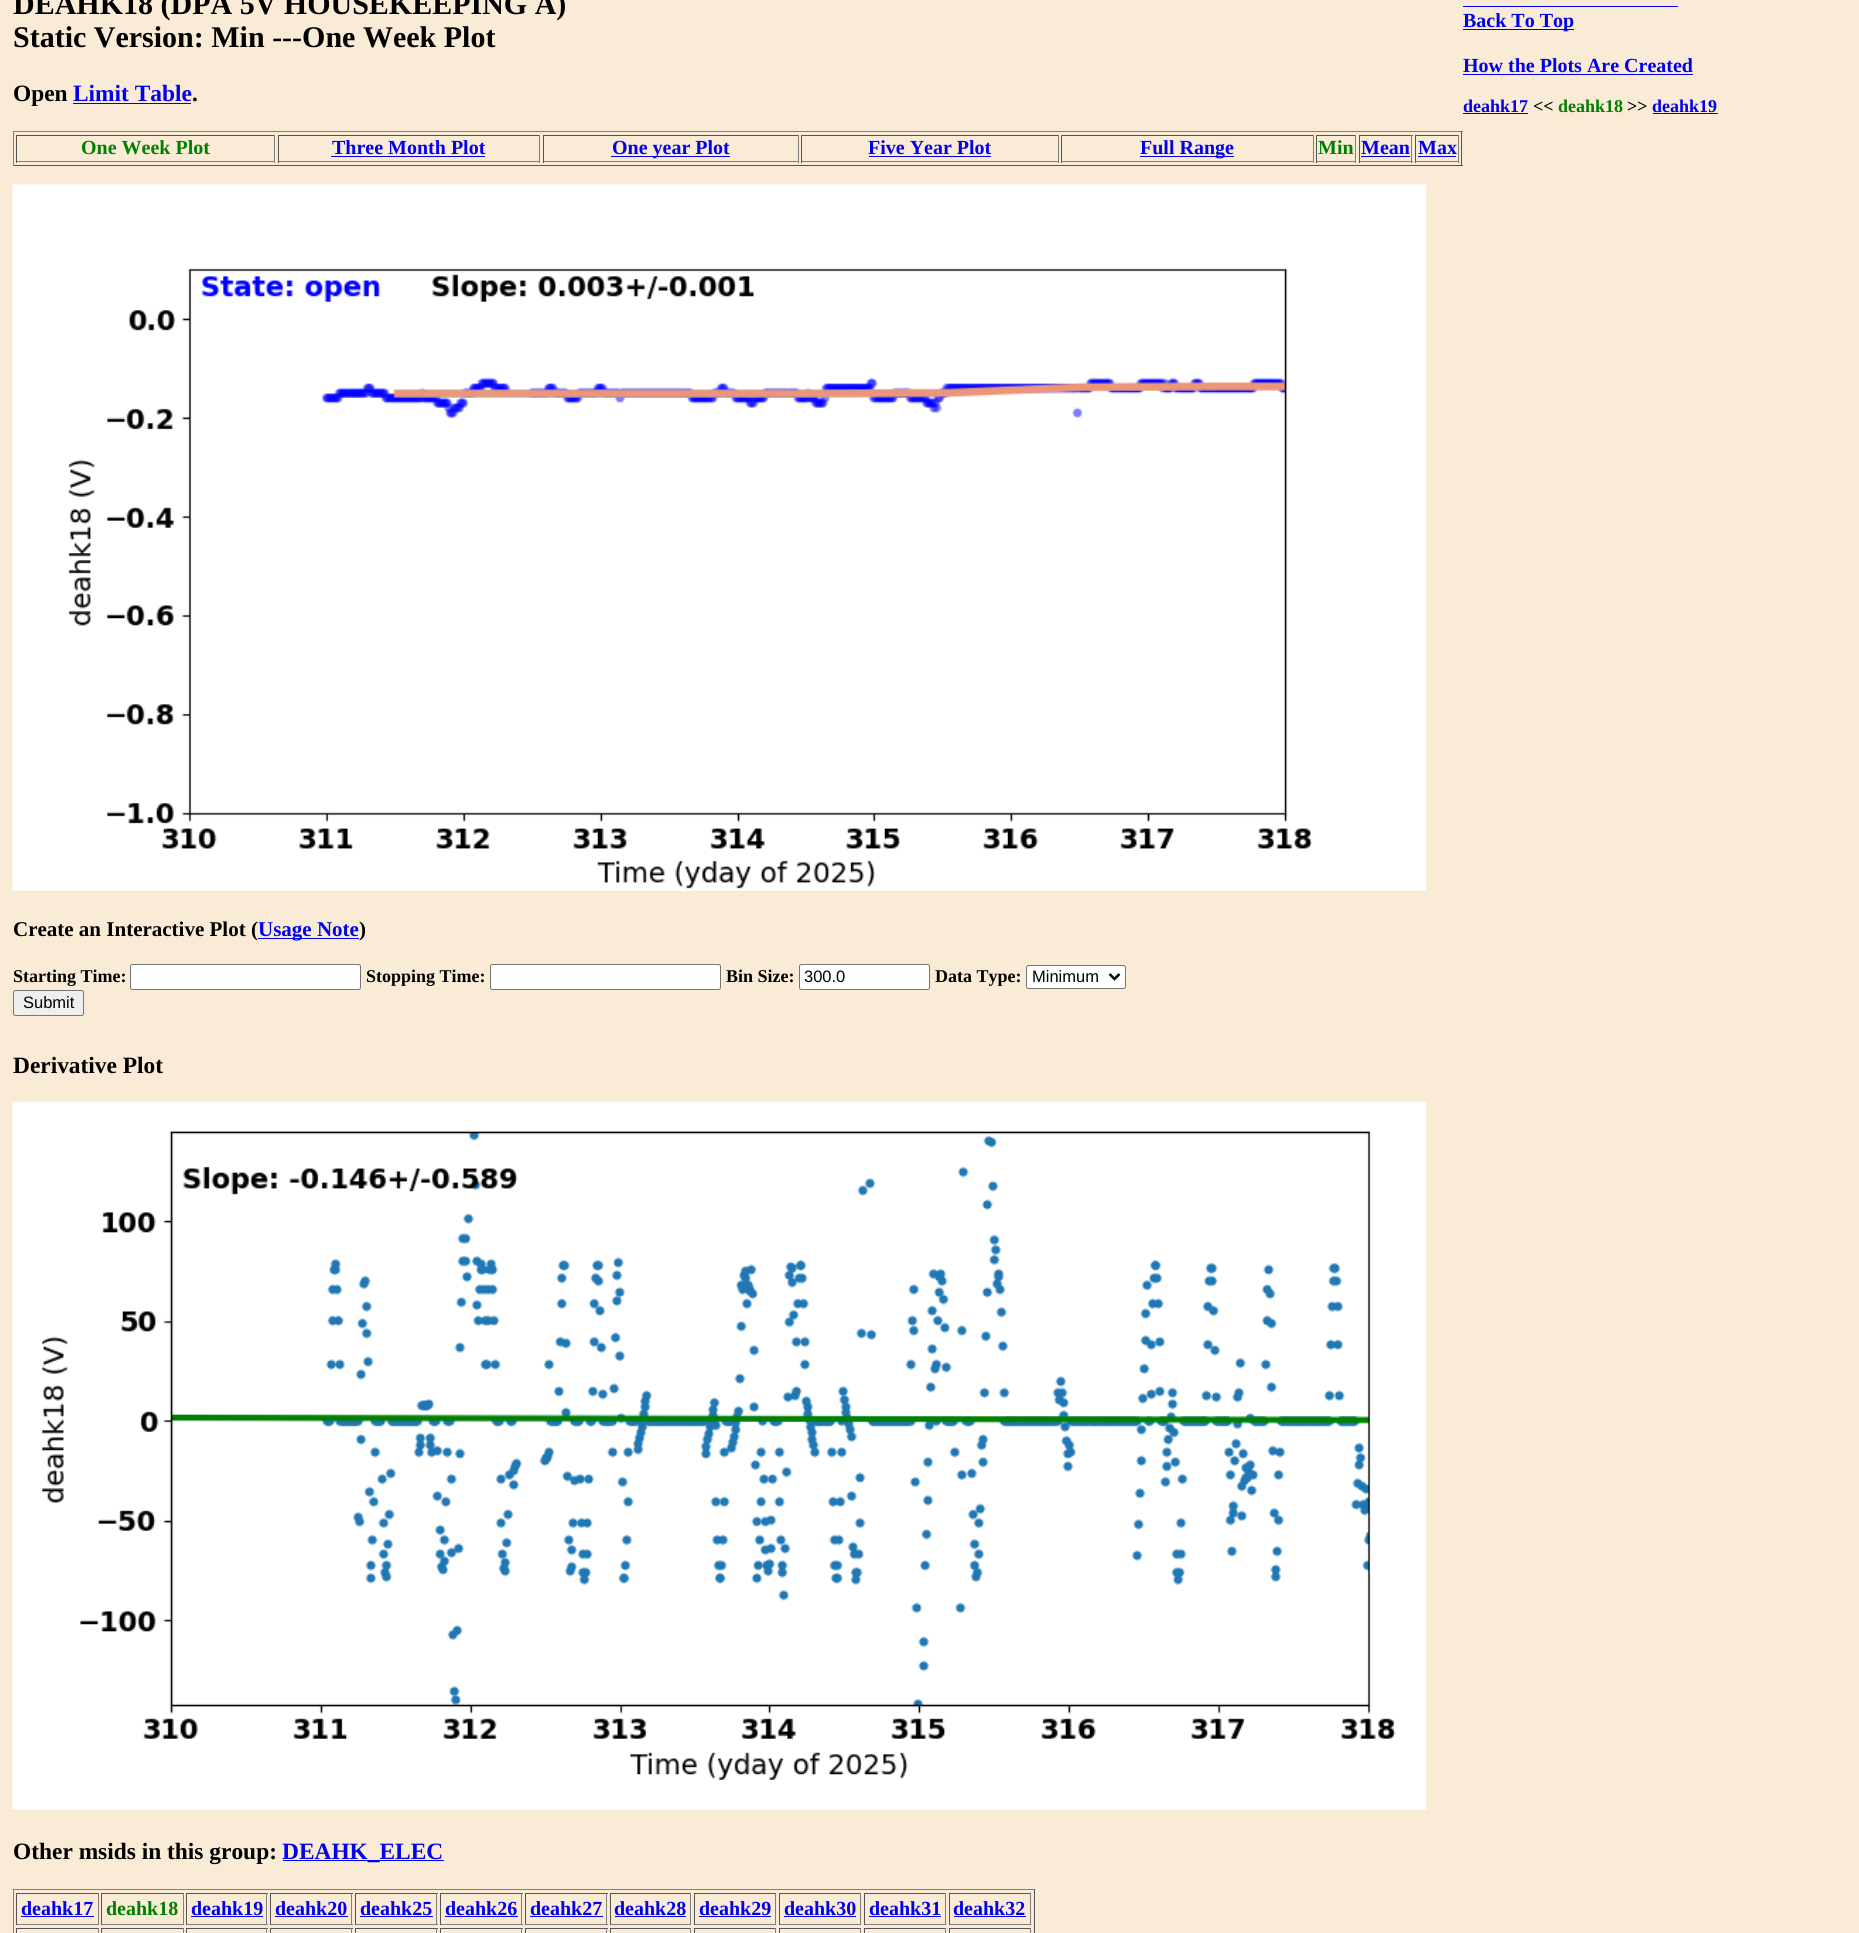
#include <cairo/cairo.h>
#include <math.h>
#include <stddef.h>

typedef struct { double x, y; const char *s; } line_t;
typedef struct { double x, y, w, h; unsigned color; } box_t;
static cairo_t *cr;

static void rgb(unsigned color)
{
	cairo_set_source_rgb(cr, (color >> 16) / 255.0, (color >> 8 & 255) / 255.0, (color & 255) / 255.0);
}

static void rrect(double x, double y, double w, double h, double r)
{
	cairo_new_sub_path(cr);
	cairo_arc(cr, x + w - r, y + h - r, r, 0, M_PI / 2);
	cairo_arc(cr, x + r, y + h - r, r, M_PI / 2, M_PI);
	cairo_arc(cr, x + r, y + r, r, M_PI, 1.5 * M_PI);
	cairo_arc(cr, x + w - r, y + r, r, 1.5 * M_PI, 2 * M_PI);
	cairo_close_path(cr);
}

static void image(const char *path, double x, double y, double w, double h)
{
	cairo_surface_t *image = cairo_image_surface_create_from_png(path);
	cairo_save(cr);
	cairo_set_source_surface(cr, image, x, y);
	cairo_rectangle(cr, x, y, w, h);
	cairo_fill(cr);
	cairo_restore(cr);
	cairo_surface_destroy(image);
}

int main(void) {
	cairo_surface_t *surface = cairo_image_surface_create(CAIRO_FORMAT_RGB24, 1859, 1933);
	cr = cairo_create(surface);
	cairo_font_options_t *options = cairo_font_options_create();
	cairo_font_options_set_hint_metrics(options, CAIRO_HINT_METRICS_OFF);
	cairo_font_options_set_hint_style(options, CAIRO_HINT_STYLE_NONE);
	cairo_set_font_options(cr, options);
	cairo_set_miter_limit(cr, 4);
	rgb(0xfaebd7);
	cairo_paint(cr);
	{
		static const box_t items[] = {
			{73, 103, 118, 1, 0x0000ee},
			{13, 131, 1450, 1, 0x808080},
			{1461, 131, 1, 35, 0x555555},
			{13, 165, 1450, 1, 0x555555},
			{13, 131, 1, 35, 0x808080},
			{16, 135, 259, 1, 0x555555},
			{274, 135, 1, 28, 0x808080},
			{16, 161, 259, 1, 0x808080},
			{16, 135, 1, 28, 0x555555},
			{278, 135, 262, 1, 0x555555},
			{539, 135, 1, 28, 0x808080},
			{278, 161, 262, 1, 0x808080},
			{278, 135, 1, 28, 0x555555},
			{331, 156, 154, 1, 0x0000ee},
			{543, 135, 256, 1, 0x555555},
			{798, 135, 1, 28, 0x808080},
			{543, 161, 256, 1, 0x808080},
			{543, 135, 1, 28, 0x555555},
			{611, 156, 119, 1, 0x0000ee},
			{801, 135, 258, 1, 0x555555},
			{1058, 135, 1, 28, 0x808080},
			{801, 161, 258, 1, 0x808080},
			{801, 135, 1, 28, 0x555555},
			{869, 156, 122, 1, 0x0000ee},
			{1061, 135, 253, 1, 0x555555},
			{1313, 135, 1, 28, 0x808080},
			{1061, 161, 253, 1, 0x808080},
			{1061, 135, 1, 28, 0x555555},
			{1140, 156, 94, 1, 0x0000ee},
			{1316, 135, 40, 1, 0x555555},
			{1355, 135, 1, 28, 0x808080},
			{1316, 161, 40, 1, 0x808080},
			{1316, 135, 1, 28, 0x555555},
			{1359, 135, 54, 1, 0x555555},
			{1411, 135, 1, 28, 0x808080},
			{1359, 161, 54, 1, 0x808080},
			{1359, 135, 1, 28, 0x555555},
			{1361, 156, 49, 1, 0x0000ee},
			{1415, 135, 44, 1, 0x555555},
			{1458, 135, 1, 28, 0x808080},
			{1415, 161, 44, 1, 0x808080},
			{1415, 135, 1, 28, 0x555555},
			{1418, 156, 38, 1, 0x0000ee},
		};
		for (size_t i = 0; i < sizeof items / sizeof *items; i++) {
			rgb(items[i].color);
			cairo_rectangle(cr, items[i].x, items[i].y, items[i].w, items[i].h);
			cairo_fill(cr);
		}
	}
	image("img/1.png", 12, 184, 1415, 707);
	cairo_rectangle(cr, 258, 938, 101, 1);
	cairo_fill(cr);
	rgb(0xffffff);
	rrect(130.5, 964.5, 230, 25, 2);
	cairo_fill_preserve(cr);
	rgb(0x767676);
	cairo_set_line_width(cr, 1);
	cairo_stroke(cr);
	rgb(0xffffff);
	rrect(490.5, 964.5, 230, 25, 2);
	cairo_fill_preserve(cr);
	rgb(0x767676);
	cairo_stroke(cr);
	rgb(0xffffff);
	rrect(799.5, 964.5, 130, 25, 2);
	cairo_fill_preserve(cr);
	rgb(0x767676);
	cairo_stroke(cr);
	rgb(0xffffff);
	rrect(1026.5, 965.5, 99, 23, 2);
	cairo_fill_preserve(cr);
	rgb(0x767676);
	cairo_stroke(cr);
	cairo_new_path(cr);
	cairo_move_to(cr, 1109.5, 974);
	cairo_line_to(cr, 1114.5, 979);
	cairo_line_to(cr, 1119.5, 974);
	rgb(0x000000);
	cairo_set_line_width(cr, 2.5);
	cairo_stroke(cr);
	rgb(0xefefef);
	rrect(13.5, 990.5, 70, 25, 2);
	cairo_fill_preserve(cr);
	rgb(0x767676);
	cairo_set_line_width(cr, 1);
	cairo_stroke(cr);
	image("img/2.png", 12, 1102, 1415, 708);
	{
		static const box_t items[] = {
			{283, 1860, 161, 1, 0x0000ee},
			{13, 1889, 1022, 1, 0x808080},
			{1034, 1889, 1, 44, 0x555555},
			{13, 1889, 1, 44, 0x808080},
			{16, 1893, 83, 1, 0x555555},
			{98, 1893, 1, 32, 0x808080},
			{16, 1924, 83, 1, 0x808080},
			{16, 1893, 1, 32, 0x555555},
			{21, 1916, 73, 1, 0x0000ee},
			{101, 1893, 83, 1, 0x555555},
			{183, 1893, 1, 32, 0x808080},
			{101, 1924, 83, 1, 0x808080},
			{101, 1893, 1, 32, 0x555555},
			{186, 1893, 82, 1, 0x555555},
			{266, 1893, 1, 32, 0x808080},
			{186, 1924, 82, 1, 0x808080},
			{186, 1893, 1, 32, 0x555555},
			{191, 1916, 72, 1, 0x0000ee},
			{270, 1893, 83, 1, 0x555555},
			{351, 1893, 1, 32, 0x808080},
			{270, 1924, 83, 1, 0x808080},
			{270, 1893, 1, 32, 0x555555},
			{275, 1916, 73, 1, 0x0000ee},
			{355, 1893, 83, 1, 0x555555},
			{436, 1893, 1, 32, 0x808080},
			{355, 1924, 83, 1, 0x808080},
			{355, 1893, 1, 32, 0x555555},
			{360, 1916, 73, 1, 0x0000ee},
			{440, 1893, 83, 1, 0x555555},
			{521, 1893, 1, 32, 0x808080},
			{440, 1924, 83, 1, 0x808080},
			{440, 1893, 1, 32, 0x555555},
			{445, 1916, 73, 1, 0x0000ee},
			{525, 1893, 83, 1, 0x555555},
			{606, 1893, 1, 32, 0x808080},
			{525, 1924, 83, 1, 0x808080},
			{525, 1893, 1, 32, 0x555555},
			{530, 1916, 73, 1, 0x0000ee},
			{610, 1893, 81, 1, 0x555555},
			{690, 1893, 1, 32, 0x808080},
			{610, 1924, 81, 1, 0x808080},
			{610, 1893, 1, 32, 0x555555},
			{615, 1916, 71, 1, 0x0000ee},
			{694, 1893, 82, 1, 0x555555},
			{775, 1893, 1, 32, 0x808080},
			{694, 1924, 82, 1, 0x808080},
			{694, 1893, 1, 32, 0x555555},
			{699, 1916, 72, 1, 0x0000ee},
			{779, 1893, 82, 1, 0x555555},
			{860, 1893, 1, 32, 0x808080},
			{779, 1924, 82, 1, 0x808080},
			{779, 1893, 1, 32, 0x555555},
			{784, 1916, 72, 1, 0x0000ee},
			{864, 1893, 82, 1, 0x555555},
			{945, 1893, 1, 32, 0x808080},
			{864, 1924, 82, 1, 0x808080},
			{864, 1893, 1, 32, 0x555555},
			{869, 1916, 72, 1, 0x0000ee},
			{949, 1893, 82, 1, 0x555555},
			{1030, 1893, 1, 32, 0x808080},
			{949, 1924, 82, 1, 0x808080},
			{949, 1893, 1, 32, 0x555555},
			{954, 1916, 72, 1, 0x0000ee},
			{16, 1928, 83, 1, 0x555555},
			{98, 1928, 1, 5, 0x808080},
			{16, 1928, 1, 5, 0x555555},
			{101, 1928, 83, 1, 0x555555},
			{183, 1928, 1, 5, 0x808080},
			{101, 1928, 1, 5, 0x555555},
			{186, 1928, 82, 1, 0x555555},
			{266, 1928, 1, 5, 0x808080},
			{186, 1928, 1, 5, 0x555555},
			{270, 1928, 83, 1, 0x555555},
			{351, 1928, 1, 5, 0x808080},
			{270, 1928, 1, 5, 0x555555},
			{355, 1928, 83, 1, 0x555555},
			{436, 1928, 1, 5, 0x808080},
			{355, 1928, 1, 5, 0x555555},
			{440, 1928, 83, 1, 0x555555},
			{521, 1928, 1, 5, 0x808080},
			{440, 1928, 1, 5, 0x555555},
			{525, 1928, 83, 1, 0x555555},
			{606, 1928, 1, 5, 0x808080},
			{525, 1928, 1, 5, 0x555555},
			{610, 1928, 81, 1, 0x555555},
			{690, 1928, 1, 5, 0x808080},
			{610, 1928, 1, 5, 0x555555},
			{694, 1928, 82, 1, 0x555555},
			{775, 1928, 1, 5, 0x808080},
			{694, 1928, 1, 5, 0x555555},
			{779, 1928, 82, 1, 0x555555},
			{860, 1928, 1, 5, 0x808080},
			{779, 1928, 1, 5, 0x555555},
			{864, 1928, 82, 1, 0x555555},
			{945, 1928, 1, 5, 0x808080},
			{864, 1928, 1, 5, 0x555555},
			{949, 1928, 82, 1, 0x555555},
			{1030, 1928, 1, 5, 0x808080},
			{949, 1928, 1, 5, 0x555555},
			{1463, 6, 215, 1, 0x0000ee},
			{1463, 29, 111, 1, 0x0000ee},
			{1463, 74, 230, 1, 0x0000ee},
			{1463, 113, 65, 1, 0x0000ee},
			{1653, 113, 65, 1, 0x0000ee},
		};
		for (size_t i = 0; i < sizeof items / sizeof *items; i++) {
			rgb(items[i].color);
			cairo_rectangle(cr, items[i].x, items[i].y, items[i].w, items[i].h);
			cairo_fill(cr);
		}
	}
	cairo_select_font_face(cr, "Liberation Serif", CAIRO_FONT_SLANT_NORMAL, CAIRO_FONT_WEIGHT_BOLD);
	cairo_set_font_size(cr, 30);
	rgb(0x000000);
	cairo_move_to(cr, 13, 14);
	cairo_show_text(cr, "DEAHK18 (DPA 5V HOUSEKEEPING A)");
	cairo_move_to(cr, 13, 47);
	cairo_show_text(cr, "Static Version: Min ---One Week Plot");
	cairo_set_font_size(cr, 23.4);
	cairo_move_to(cr, 13, 101);
	cairo_show_text(cr, "Open");
	rgb(0x0000ee);
	cairo_move_to(cr, 73, 101);
	cairo_show_text(cr, "Limit Table");
	rgb(0x000000);
	cairo_move_to(cr, 192, 101);
	cairo_show_text(cr, ".");
	cairo_set_font_size(cr, 20);
	rgb(0x008000);
	cairo_move_to(cr, 81, 154);
	cairo_show_text(cr, "One Week Plot");
	rgb(0x0000ee);
	{
		static const line_t items[] = {
			{332, 154, "Three Month Plot"},
			{612, 154, "One year Plot"},
			{868, 154, "Five Year Plot"},
			{1140, 154, "Full Range"},
		};
		for (size_t i = 0; i < sizeof items / sizeof *items; i++) {
			cairo_move_to(cr, items[i].x, items[i].y);
			cairo_show_text(cr, items[i].s);
		}
	}
	rgb(0x008000);
	cairo_move_to(cr, 1318, 154);
	cairo_show_text(cr, "Min");
	rgb(0x0000ee);
	cairo_move_to(cr, 1361, 154);
	cairo_show_text(cr, "Mean");
	cairo_move_to(cr, 1418, 154);
	cairo_show_text(cr, "Max");
	cairo_set_font_size(cr, 21);
	rgb(0x000000);
	cairo_move_to(cr, 13, 936);
	cairo_show_text(cr, "Create an Interactive Plot (");
	rgb(0x0000ee);
	cairo_move_to(cr, 258, 936);
	cairo_show_text(cr, "Usage Note");
	rgb(0x000000);
	cairo_move_to(cr, 359, 936);
	cairo_show_text(cr, ")");
	cairo_set_font_size(cr, 18);
	{
		static const line_t items[] = {
			{13, 982, "Starting Time:"},
			{366, 982, "Stopping Time:"},
			{726, 982, "Bin Size:"},
		};
		for (size_t i = 0; i < sizeof items / sizeof *items; i++) {
			cairo_move_to(cr, items[i].x, items[i].y);
			cairo_show_text(cr, items[i].s);
		}
	}
	cairo_select_font_face(cr, "Liberation Sans", CAIRO_FONT_SLANT_NORMAL, CAIRO_FONT_WEIGHT_NORMAL);
	cairo_set_font_size(cr, 16.5);
	cairo_move_to(cr, 804, 982);
	cairo_show_text(cr, "300.0");
	cairo_select_font_face(cr, "Liberation Serif", CAIRO_FONT_SLANT_NORMAL, CAIRO_FONT_WEIGHT_BOLD);
	cairo_set_font_size(cr, 18);
	cairo_move_to(cr, 935, 982);
	cairo_show_text(cr, "Data Type:");
	cairo_select_font_face(cr, "Liberation Sans", CAIRO_FONT_SLANT_NORMAL, CAIRO_FONT_WEIGHT_NORMAL);
	cairo_set_font_size(cr, 16.5);
	cairo_move_to(cr, 1032, 982);
	cairo_show_text(cr, "Minimum");
	cairo_move_to(cr, 23, 1008);
	cairo_show_text(cr, "Submit");
	cairo_select_font_face(cr, "Liberation Serif", CAIRO_FONT_SLANT_NORMAL, CAIRO_FONT_WEIGHT_BOLD);
	cairo_set_font_size(cr, 23.4);
	cairo_move_to(cr, 13, 1073);
	cairo_show_text(cr, "Derivative Plot");
	cairo_move_to(cr, 13, 1859);
	cairo_show_text(cr, "Other msids in this group:");
	rgb(0x0000ee);
	cairo_move_to(cr, 282, 1859);
	cairo_show_text(cr, "DEAHK_ELEC");
	cairo_set_font_size(cr, 20);
	cairo_move_to(cr, 21, 1915);
	cairo_show_text(cr, "deahk17");
	rgb(0x008000);
	cairo_move_to(cr, 106, 1915);
	cairo_show_text(cr, "deahk18");
	rgb(0x0000ee);
	{
		static const line_t items[] = {
			{191, 1915, "deahk19"},
			{275, 1915, "deahk20"},
			{360, 1915, "deahk25"},
			{445, 1915, "deahk26"},
			{530, 1915, "deahk27"},
			{614, 1915, "deahk28"},
			{699, 1915, "deahk29"},
			{784, 1915, "deahk30"},
			{869, 1915, "deahk31"},
			{953, 1915, "deahk32"},
			{1463, 27, "Back To Top"},
			{1463, 72, "How the Plots Are Created"},
		};
		for (size_t i = 0; i < sizeof items / sizeof *items; i++) {
			cairo_move_to(cr, items[i].x, items[i].y);
			cairo_show_text(cr, items[i].s);
		}
	}
	cairo_set_font_size(cr, 18);
	cairo_move_to(cr, 1463, 112);
	cairo_show_text(cr, "deahk17");
	rgb(0x000000);
	cairo_move_to(cr, 1533, 112);
	cairo_show_text(cr, "<<");
	rgb(0x008000);
	cairo_move_to(cr, 1558, 112);
	cairo_show_text(cr, "deahk18");
	rgb(0x000000);
	cairo_move_to(cr, 1627, 112);
	cairo_show_text(cr, ">>");
	rgb(0x0000ee);
	cairo_move_to(cr, 1652, 112);
	cairo_show_text(cr, "deahk19");
	cairo_surface_write_to_png(surface, "page.png");
	cairo_font_options_destroy(options);
	cairo_destroy(cr);
	cairo_surface_destroy(surface);
	return 0;
}
